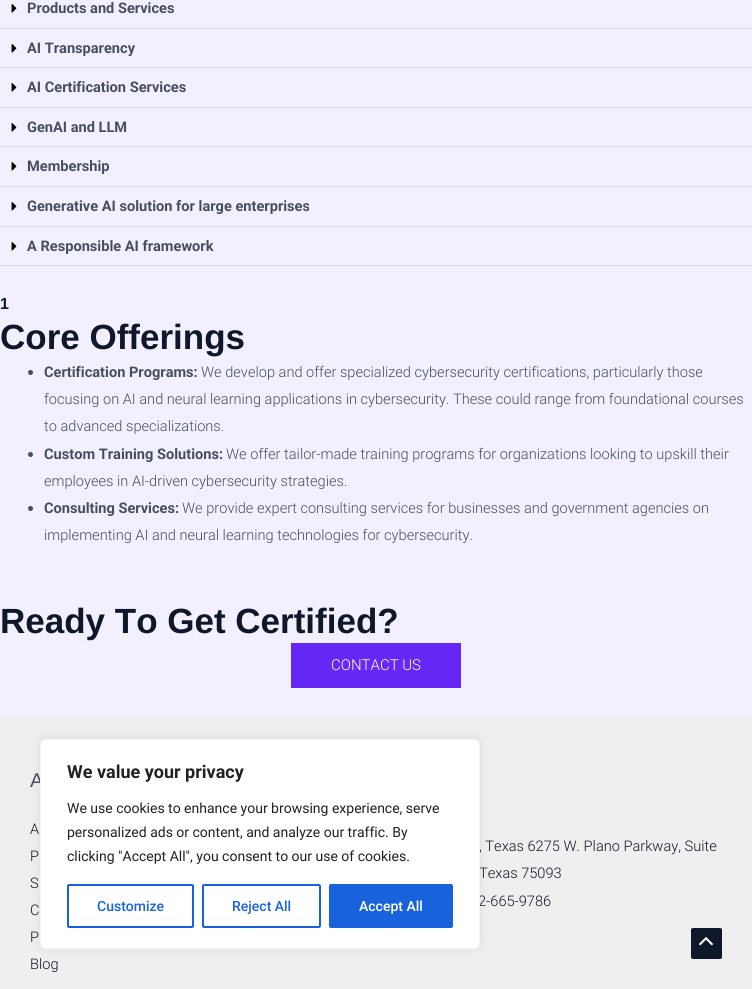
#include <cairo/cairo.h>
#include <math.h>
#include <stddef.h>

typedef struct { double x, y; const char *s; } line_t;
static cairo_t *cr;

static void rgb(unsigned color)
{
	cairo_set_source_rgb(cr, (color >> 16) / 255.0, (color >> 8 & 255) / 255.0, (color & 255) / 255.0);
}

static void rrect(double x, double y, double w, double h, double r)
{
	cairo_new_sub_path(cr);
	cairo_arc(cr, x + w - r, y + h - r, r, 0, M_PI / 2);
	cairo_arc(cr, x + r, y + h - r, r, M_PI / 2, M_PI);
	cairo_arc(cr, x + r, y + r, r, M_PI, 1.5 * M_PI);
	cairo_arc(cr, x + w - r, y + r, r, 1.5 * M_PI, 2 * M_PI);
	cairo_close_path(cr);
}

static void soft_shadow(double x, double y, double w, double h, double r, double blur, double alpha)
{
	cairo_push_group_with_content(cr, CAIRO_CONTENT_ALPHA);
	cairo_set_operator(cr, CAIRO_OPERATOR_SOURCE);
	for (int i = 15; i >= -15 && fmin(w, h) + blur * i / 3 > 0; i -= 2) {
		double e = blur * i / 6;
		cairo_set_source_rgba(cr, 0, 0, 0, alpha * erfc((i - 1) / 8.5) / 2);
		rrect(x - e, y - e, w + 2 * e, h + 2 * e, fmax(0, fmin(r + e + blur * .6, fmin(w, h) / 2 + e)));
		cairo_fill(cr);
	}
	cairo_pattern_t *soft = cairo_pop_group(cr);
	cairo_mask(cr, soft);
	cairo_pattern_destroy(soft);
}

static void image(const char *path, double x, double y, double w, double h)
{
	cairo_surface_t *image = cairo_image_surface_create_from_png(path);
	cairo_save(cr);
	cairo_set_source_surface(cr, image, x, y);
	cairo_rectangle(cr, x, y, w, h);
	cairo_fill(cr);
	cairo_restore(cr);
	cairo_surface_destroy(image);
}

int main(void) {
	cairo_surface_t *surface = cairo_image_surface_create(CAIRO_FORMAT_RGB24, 752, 989);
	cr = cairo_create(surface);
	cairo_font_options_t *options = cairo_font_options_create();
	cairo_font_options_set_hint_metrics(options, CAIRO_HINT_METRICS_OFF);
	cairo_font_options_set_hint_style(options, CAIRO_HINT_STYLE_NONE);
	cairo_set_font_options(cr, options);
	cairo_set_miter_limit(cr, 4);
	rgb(0xf2f0fe);
	cairo_paint(cr);
	rgb(0xd5d8dc);
	cairo_rectangle(cr, 0, 28, 752, 1);
	cairo_fill(cr);
	image("img/1.png", 11, 4, 6, 9);
	cairo_rectangle(cr, 0, 67, 752, 1);
	cairo_fill(cr);
	image("img/1.png", 11, 44, 6, 9);
	cairo_rectangle(cr, 0, 107, 752, 1);
	cairo_fill(cr);
	image("img/1.png", 11, 83, 6, 9);
	cairo_rectangle(cr, 0, 146, 752, 1);
	cairo_fill(cr);
	image("img/1.png", 11, 123, 6, 9);
	cairo_rectangle(cr, 0, 186, 752, 1);
	cairo_fill(cr);
	image("img/1.png", 11, 162, 6, 9);
	cairo_rectangle(cr, 0, 226, 752, 1);
	cairo_fill(cr);
	image("img/1.png", 11, 202, 6, 9);
	cairo_rectangle(cr, 0, 265, 752, 1);
	cairo_fill(cr);
	image("img/1.png", 11, 242, 6, 9);
	rgb(0x454f5e);
	cairo_arc(cr, 30.5, 372.5, 2.5, 0, 2 * M_PI);
	cairo_fill(cr);
	cairo_arc(cr, 30.5, 454.5, 2.5, 0, 2 * M_PI);
	cairo_fill(cr);
	cairo_arc(cr, 30.5, 508.5, 2.5, 0, 2 * M_PI);
	cairo_fill(cr);
	rgb(0x6528f7);
	cairo_rectangle(cr, 291, 643, 170, 45);
	cairo_fill(cr);
	rgb(0xf0efef);
	cairo_rectangle(cr, 0, 715, 752, 274);
	cairo_fill(cr);
	rgb(0xacabab);
	soft_shadow(40, 738, 440, 210, 6, 5, 0.3);
	rgb(0x0f172a);
	rrect(691, 928, 31, 31, 2);
	cairo_fill(cr);
	image("img/2.png", 699, 937, 15, 9);
	cairo_select_font_face(cr, "Roboto", CAIRO_FONT_SLANT_NORMAL, CAIRO_FONT_WEIGHT_BOLD);
	cairo_set_font_size(cr, 14.6);
	rgb(0x454f5e);
	{
		static const line_t items[] = {
			{27, 13, "Products and Services"},
			{27, 53, "AI Transparency"},
			{27, 92, "AI Certification Services"},
			{27, 132, "GenAI and LLM"},
			{27, 171, "Membership"},
			{27, 211, "Generative AI solution for large enterprises"},
			{27, 251, "A Responsible AI framework"},
		};
		for (size_t i = 0; i < sizeof items / sizeof *items; i++) {
			cairo_move_to(cr, items[i].x, items[i].y);
			cairo_show_text(cr, items[i].s);
		}
	}
	cairo_select_font_face(cr, "Liberation Sans", CAIRO_FONT_SLANT_NORMAL, CAIRO_FONT_WEIGHT_BOLD);
	cairo_set_font_size(cr, 16);
	rgb(0x0f172a);
	cairo_move_to(cr, 0, 309);
	cairo_show_text(cr, "1");
	cairo_set_font_size(cr, 35);
	cairo_move_to(cr, 0, 349);
	cairo_show_text(cr, "Core Offerings");
	cairo_select_font_face(cr, "Roboto", CAIRO_FONT_SLANT_NORMAL, CAIRO_FONT_WEIGHT_BOLD);
	cairo_set_font_size(cr, 14.6);
	rgb(0x454f5e);
	cairo_move_to(cr, 44, 377);
	cairo_show_text(cr, "Certification Programs:");
	cairo_select_font_face(cr, "Roboto Light", CAIRO_FONT_SLANT_NORMAL, CAIRO_FONT_WEIGHT_NORMAL);
	{
		static const line_t items[] = {
			{201, 377, "We develop and offer specialized cybersecurity certifications, particularly those"},
			{44, 404, "focusing on AI and neural learning applications in cybersecurity. These could range from foundational courses"},
			{44, 431, "to advanced specializations."},
		};
		for (size_t i = 0; i < sizeof items / sizeof *items; i++) {
			cairo_move_to(cr, items[i].x, items[i].y);
			cairo_show_text(cr, items[i].s);
		}
	}
	cairo_select_font_face(cr, "Roboto", CAIRO_FONT_SLANT_NORMAL, CAIRO_FONT_WEIGHT_BOLD);
	cairo_move_to(cr, 44, 459);
	cairo_show_text(cr, "Custom Training Solutions:");
	cairo_select_font_face(cr, "Roboto Light", CAIRO_FONT_SLANT_NORMAL, CAIRO_FONT_WEIGHT_NORMAL);
	cairo_move_to(cr, 226, 459);
	cairo_show_text(cr, "We offer tailor-made training programs for organizations looking to upskill their");
	cairo_move_to(cr, 44, 486);
	cairo_show_text(cr, "employees in AI-driven cybersecurity strategies.");
	cairo_select_font_face(cr, "Roboto", CAIRO_FONT_SLANT_NORMAL, CAIRO_FONT_WEIGHT_BOLD);
	cairo_move_to(cr, 44, 513);
	cairo_show_text(cr, "Consulting Services:");
	cairo_select_font_face(cr, "Roboto Light", CAIRO_FONT_SLANT_NORMAL, CAIRO_FONT_WEIGHT_NORMAL);
	cairo_move_to(cr, 182, 513);
	cairo_show_text(cr, "We provide expert consulting services for businesses and government agencies on");
	cairo_move_to(cr, 44, 540);
	cairo_show_text(cr, "implementing AI and neural learning technologies for cybersecurity.");
	cairo_select_font_face(cr, "Liberation Sans", CAIRO_FONT_SLANT_NORMAL, CAIRO_FONT_WEIGHT_BOLD);
	cairo_set_font_size(cr, 35);
	rgb(0x0f172a);
	cairo_move_to(cr, 0, 633);
	cairo_show_text(cr, "Ready To Get Certified?");
	cairo_select_font_face(cr, "Roboto Light", CAIRO_FONT_SLANT_NORMAL, CAIRO_FONT_WEIGHT_NORMAL);
	cairo_set_font_size(cr, 15);
	rgb(0xffffff);
	cairo_move_to(cr, 331, 670);
	cairo_show_text(cr, "CONTACT US");
	cairo_select_font_face(cr, "Liberation Sans", CAIRO_FONT_SLANT_NORMAL, CAIRO_FONT_WEIGHT_NORMAL);
	cairo_set_font_size(cr, 20);
	rgb(0x454f5e);
	cairo_move_to(cr, 30, 787);
	cairo_show_text(cr, "A");
	cairo_select_font_face(cr, "Roboto Light", CAIRO_FONT_SLANT_NORMAL, CAIRO_FONT_WEIGHT_NORMAL);
	cairo_set_font_size(cr, 14.6);
	rgb(0x0f172a);
	{
		static const line_t items[] = {
			{30, 834, "A"},
			{30, 861, "P"},
			{30, 888, "S"},
			{30, 915, "C"},
			{30, 942, "P"},
			{30, 969, "Blog"},
			{479, 851, ", Texas 6275 W. Plano Parkway, Suite"},
			{479, 878, "Texas 75093"},
			{478, 906, "2-665-9786"},
		};
		for (size_t i = 0; i < sizeof items / sizeof *items; i++) {
			cairo_move_to(cr, items[i].x, items[i].y);
			cairo_show_text(cr, items[i].s);
		}
	}
	rgb(0xffffff);
	rrect(40.5, 739.5, 439, 209, 5.5);
	cairo_fill_preserve(cr);
	rgb(0xf4f4f4);
	cairo_set_line_width(cr, 1);
	cairo_stroke(cr);
	cairo_select_font_face(cr, "Roboto", CAIRO_FONT_SLANT_NORMAL, CAIRO_FONT_WEIGHT_BOLD);
	cairo_set_font_size(cr, 18);
	rgb(0x212121);
	cairo_move_to(cr, 67, 778);
	cairo_show_text(cr, "We value your privacy");
	cairo_select_font_face(cr, "Roboto", CAIRO_FONT_SLANT_NORMAL, CAIRO_FONT_WEIGHT_NORMAL);
	cairo_set_font_size(cr, 14);
	{
		static const line_t items[] = {
			{67, 813, "We use cookies to enhance your browsing experience, serve"},
			{67, 837, "personalized ads or content, and analyze our traffic. By"},
			{67, 861, "clicking \"Accept All\", you consent to our use of cookies."},
		};
		for (size_t i = 0; i < sizeof items / sizeof *items; i++) {
			cairo_move_to(cr, items[i].x, items[i].y);
			cairo_show_text(cr, items[i].s);
		}
	}
	rrect(68, 885, 125, 42, 1);
	rgb(0x1863dc);
	cairo_set_line_width(cr, 2);
	cairo_stroke(cr);
	cairo_select_font_face(cr, "Roboto Medium", CAIRO_FONT_SLANT_NORMAL, CAIRO_FONT_WEIGHT_NORMAL);
	cairo_move_to(cr, 97, 911);
	cairo_show_text(cr, "Customize");
	rrect(203, 885, 117, 42, 1);
	cairo_stroke(cr);
	cairo_move_to(cr, 232, 911);
	cairo_show_text(cr, "Reject All");
	rrect(330, 885, 122, 42, 1);
	cairo_fill_preserve(cr);
	cairo_stroke(cr);
	rgb(0xffffff);
	cairo_move_to(cr, 359, 911);
	cairo_show_text(cr, "Accept All");
	cairo_surface_write_to_png(surface, "page.png");
	cairo_font_options_destroy(options);
	cairo_destroy(cr);
	cairo_surface_destroy(surface);
	return 0;
}
